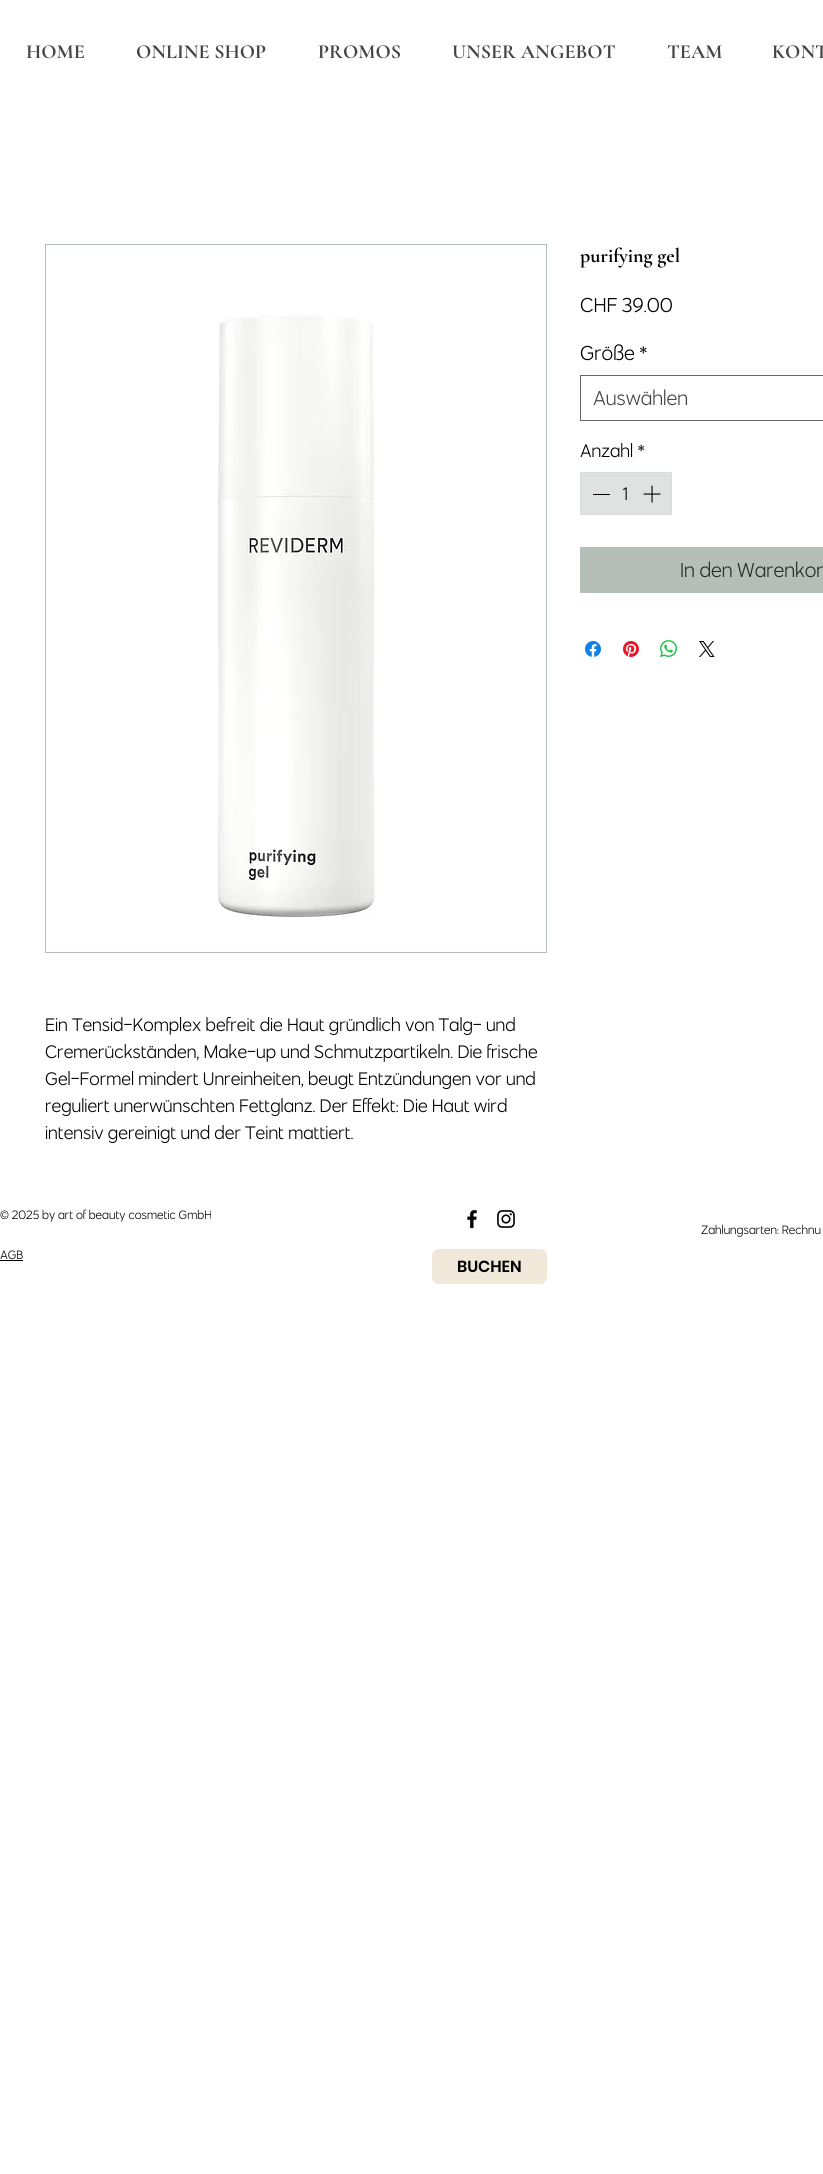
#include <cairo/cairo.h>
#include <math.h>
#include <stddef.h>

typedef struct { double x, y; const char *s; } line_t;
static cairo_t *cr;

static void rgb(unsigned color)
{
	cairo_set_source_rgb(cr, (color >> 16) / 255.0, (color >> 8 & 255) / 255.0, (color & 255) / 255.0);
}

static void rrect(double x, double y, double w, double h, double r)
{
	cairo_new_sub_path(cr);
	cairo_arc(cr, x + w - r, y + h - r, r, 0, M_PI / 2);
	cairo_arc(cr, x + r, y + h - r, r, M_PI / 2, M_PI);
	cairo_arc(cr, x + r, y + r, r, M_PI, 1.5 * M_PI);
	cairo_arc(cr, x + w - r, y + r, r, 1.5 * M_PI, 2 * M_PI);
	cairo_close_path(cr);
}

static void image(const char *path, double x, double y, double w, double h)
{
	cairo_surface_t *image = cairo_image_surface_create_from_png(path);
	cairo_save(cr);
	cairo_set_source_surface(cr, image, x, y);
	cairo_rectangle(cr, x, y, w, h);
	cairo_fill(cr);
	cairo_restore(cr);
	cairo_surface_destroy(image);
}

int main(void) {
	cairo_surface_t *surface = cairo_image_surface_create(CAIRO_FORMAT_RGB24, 823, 2174);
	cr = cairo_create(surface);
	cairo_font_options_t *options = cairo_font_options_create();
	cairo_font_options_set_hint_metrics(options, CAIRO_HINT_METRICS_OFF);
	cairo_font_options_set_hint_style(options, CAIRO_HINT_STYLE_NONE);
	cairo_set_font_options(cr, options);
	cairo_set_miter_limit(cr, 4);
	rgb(0xffffff);
	cairo_paint(cr);
	cairo_rectangle(cr, 580.5, 375.5, 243, 45);
	rgb(0x666666);
	cairo_set_line_width(cr, 1);
	cairo_stroke(cr);
	rgb(0xe0e2e1);
	cairo_rectangle(cr, 580.5, 472.5, 91, 42);
	cairo_fill_preserve(cr);
	rgb(0xd9ddd9);
	cairo_stroke(cr);
	rgb(0x000000);
	cairo_rectangle(cr, 593, 494, 17, 1);
	cairo_fill(cr);
	image("img/1.png", 643, 485, 18, 18);
	rgb(0xb5beb9);
	cairo_rectangle(cr, 580, 547, 243, 46);
	cairo_fill(cr);
	image("img/2.png", 585, 641, 16, 16);
	image("img/3.png", 623, 641, 16, 16);
	image("img/4.png", 660, 640, 17, 17);
	image("img/5.png", 699, 641, 16, 16);
	cairo_rectangle(cr, 45.5, 244.5, 501, 708);
	cairo_stroke(cr);
	image("img/6.png", 218, 315, 157, 602);
	image("img/7.png", 467, 1209, 10, 20);
	image("img/8.png", 497, 1210, 18, 18);
	rgb(0x000000);
	cairo_rectangle(cr, 0, 1260, 23, 1);
	cairo_fill(cr);
	rgb(0xf0e9da);
	rrect(432, 1249, 115, 35, 7);
	cairo_fill(cr);
	cairo_select_font_face(cr, "Cormorant Garamond", CAIRO_FONT_SLANT_NORMAL, CAIRO_FONT_WEIGHT_BOLD);
	cairo_set_font_size(cr, 20);
	rgb(0x444444);
	{
		static const line_t items[] = {
			{26, 58, "HOME"},
			{136, 58, "ONLINE SHOP"},
			{318, 58, "PROMOS"},
			{452, 58, "UNSER ANGEBOT"},
			{667, 58, "TEAM"},
			{772, 58, "KONT"},
		};
		for (size_t i = 0; i < sizeof items / sizeof *items; i++) {
			cairo_move_to(cr, items[i].x, items[i].y);
			cairo_show_text(cr, items[i].s);
		}
	}
	rgb(0x000000);
	cairo_move_to(cr, 580, 262);
	cairo_show_text(cr, "purifying gel");
	cairo_select_font_face(cr, "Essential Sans", CAIRO_FONT_SLANT_NORMAL, CAIRO_FONT_WEIGHT_NORMAL);
	{
		static const line_t items[] = {
			{580, 312, "CHF 39.00"},
			{580, 360, "Größe"},
			{639, 360, "*"},
		};
		for (size_t i = 0; i < sizeof items / sizeof *items; i++) {
			cairo_move_to(cr, items[i].x, items[i].y);
			cairo_show_text(cr, items[i].s);
		}
	}
	rgb(0x444444);
	cairo_move_to(cr, 593, 405);
	cairo_show_text(cr, "Auswählen");
	cairo_set_font_size(cr, 18);
	rgb(0x000000);
	cairo_move_to(cr, 580, 457);
	cairo_show_text(cr, "Anzahl *");
	cairo_move_to(cr, 623, 500);
	cairo_show_text(cr, "1");
	cairo_set_font_size(cr, 20);
	rgb(0x252d27);
	cairo_move_to(cr, 680, 577);
	cairo_show_text(cr, "In den Warenkor");
	cairo_set_font_size(cr, 18);
	rgb(0x000000);
	{
		static const line_t items[] = {
			{45, 1031, "Ein Tensid-Komplex befreit die Haut gründlich von Talg- und"},
			{45, 1058, "Cremerückständen, Make-up und Schmutzpartikeln. Die frische"},
			{45, 1085, "Gel-Formel mindert Unreinheiten, beugt Entzündungen vor und"},
			{45, 1112, "reguliert unerwünschten Fettglanz. Der Effekt: Die Haut wird"},
			{45, 1139, "intensiv gereinigt und der Teint mattiert."},
		};
		for (size_t i = 0; i < sizeof items / sizeof *items; i++) {
			cairo_move_to(cr, items[i].x, items[i].y);
			cairo_show_text(cr, items[i].s);
		}
	}
	cairo_set_font_size(cr, 12);
	{
		static const line_t items[] = {
			{0, 1219, "© 2025 by art of beauty cosmetic GmbH"},
			{701, 1234, "Zahlungsarten: Rechnu"},
			{0, 1259, "AGB"},
		};
		for (size_t i = 0; i < sizeof items / sizeof *items; i++) {
			cairo_move_to(cr, items[i].x, items[i].y);
			cairo_show_text(cr, items[i].s);
		}
	}
	cairo_select_font_face(cr, "Poppins SemiBold", CAIRO_FONT_SLANT_NORMAL, CAIRO_FONT_WEIGHT_NORMAL);
	cairo_set_font_size(cr, 16);
	cairo_move_to(cr, 457, 1272);
	cairo_show_text(cr, "BUCHEN");
	cairo_surface_write_to_png(surface, "page.png");
	cairo_font_options_destroy(options);
	cairo_destroy(cr);
	cairo_surface_destroy(surface);
	return 0;
}
